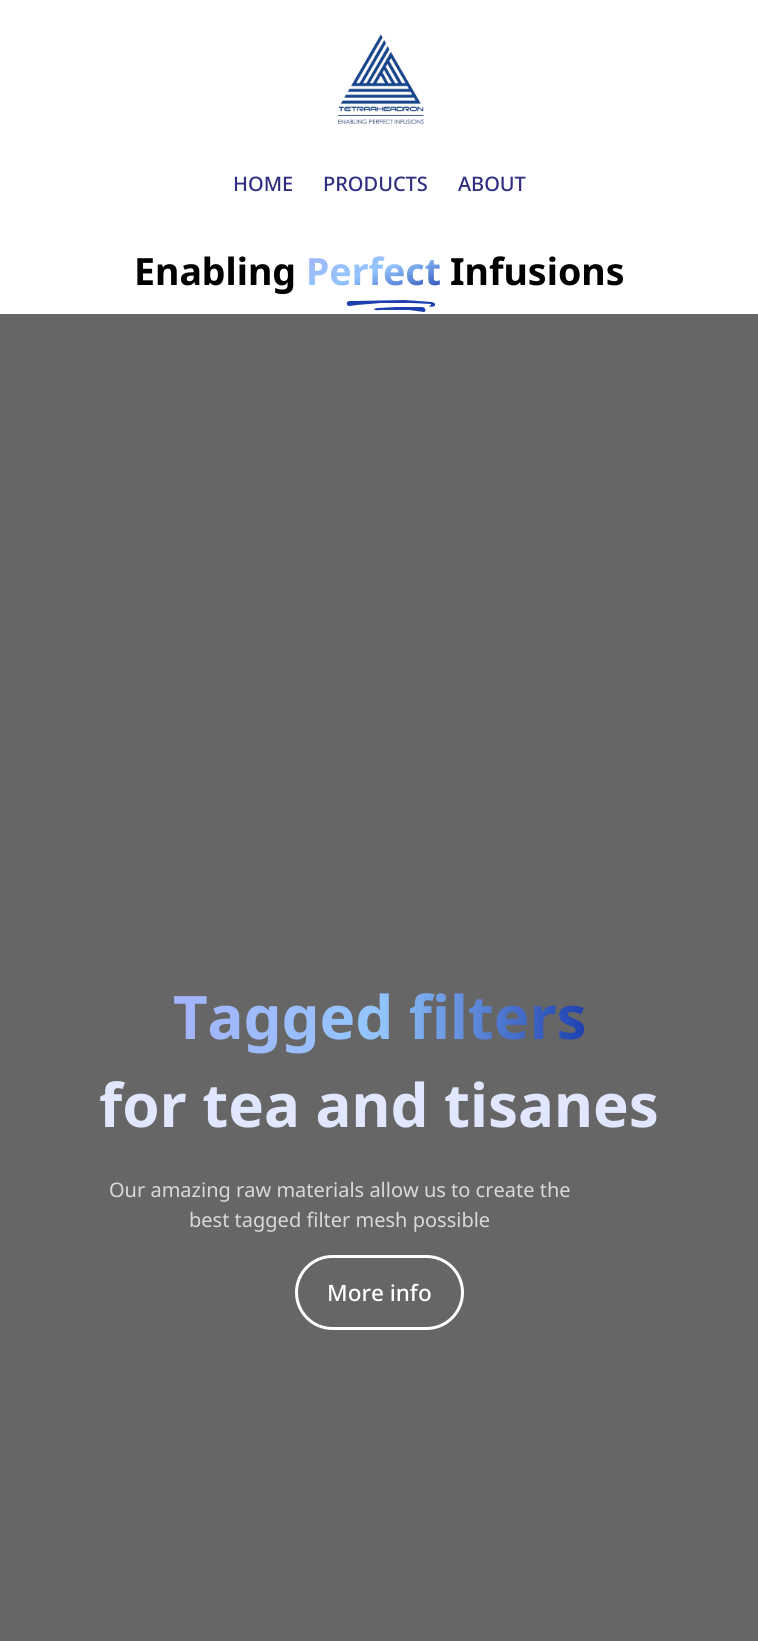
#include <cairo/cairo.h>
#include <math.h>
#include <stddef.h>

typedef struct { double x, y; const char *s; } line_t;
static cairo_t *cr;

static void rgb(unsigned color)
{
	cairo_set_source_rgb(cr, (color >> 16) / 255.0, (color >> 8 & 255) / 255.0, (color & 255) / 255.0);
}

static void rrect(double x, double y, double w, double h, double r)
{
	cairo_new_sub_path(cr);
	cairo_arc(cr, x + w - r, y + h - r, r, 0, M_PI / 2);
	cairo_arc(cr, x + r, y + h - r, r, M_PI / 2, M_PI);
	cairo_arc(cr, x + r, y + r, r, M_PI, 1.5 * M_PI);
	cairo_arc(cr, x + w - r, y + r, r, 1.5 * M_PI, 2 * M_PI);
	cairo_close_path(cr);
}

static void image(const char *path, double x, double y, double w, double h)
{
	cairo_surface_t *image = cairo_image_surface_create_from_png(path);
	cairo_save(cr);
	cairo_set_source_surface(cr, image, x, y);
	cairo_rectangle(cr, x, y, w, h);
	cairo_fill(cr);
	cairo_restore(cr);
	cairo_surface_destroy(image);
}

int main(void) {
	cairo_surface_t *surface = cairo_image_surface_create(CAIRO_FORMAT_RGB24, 758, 1641);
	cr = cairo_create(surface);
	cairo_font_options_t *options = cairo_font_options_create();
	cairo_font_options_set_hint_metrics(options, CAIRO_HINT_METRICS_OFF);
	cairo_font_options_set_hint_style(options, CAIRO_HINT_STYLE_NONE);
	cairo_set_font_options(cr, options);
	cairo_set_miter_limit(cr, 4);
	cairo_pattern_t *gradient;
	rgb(0xffffff);
	cairo_paint(cr);
	image("img/1.png", 338, 34, 86, 90);
	cairo_save(cr);
	cairo_rectangle(cr, 346, 299, 89, 14);
	cairo_clip(cr);
	rgb(0x1e40af);
	cairo_new_path(cr);
	cairo_move_to(cr, 431, 304);
	cairo_line_to(cr, 411, 303);
	cairo_line_to(cr, 381, 303);
	cairo_line_to(cr, 357, 305);
	cairo_line_to(cr, 350, 306);
	cairo_curve_to(cr, 349, 306, 347, 306, 347, 304);
	cairo_curve_to(cr, 345, 300, 355, 301, 355, 301);
	cairo_line_to(cr, 404, 300);
	cairo_line_to(cr, 419, 301);
	cairo_line_to(cr, 432, 302);
	cairo_line_to(cr, 436, 304);
	cairo_curve_to(cr, 436, 308, 425, 307, 431, 305);
	cairo_close_path(cr);
	cairo_fill(cr);
	cairo_restore(cr);
	rgb(0x1e40af);
	cairo_new_path(cr);
	cairo_move_to(cr, 380, 310);
	cairo_line_to(cr, 409, 310);
	cairo_line_to(cr, 424, 312);
	cairo_curve_to(cr, 427, 311, 425, 308, 423, 307);
	cairo_curve_to(cr, 421, 307, 421, 307, 419, 307);
	cairo_line_to(cr, 396, 307);
	cairo_line_to(cr, 377, 308);
	cairo_line_to(cr, 374, 309);
	cairo_curve_to(cr, 375, 311, 379, 310, 380, 310);
	cairo_close_path(cr);
	cairo_fill(cr);
	rgb(0x666666);
	cairo_rectangle(cr, 0, 314, 758, 1327);
	cairo_fill(cr);
	rrect(296.5, 1256.5, 166, 72, 36);
	rgb(0xffffff);
	cairo_set_line_width(cr, 3);
	cairo_stroke(cr);
	cairo_select_font_face(cr, "Noto Sans Medium", CAIRO_FONT_SLANT_NORMAL, CAIRO_FONT_WEIGHT_NORMAL);
	cairo_set_font_size(cr, 20);
	rgb(0x312e81);
	{
		static const line_t items[] = {
			{233, 191, "HOME"},
			{323, 191, "PRODUCTS"},
			{458, 191, "ABOUT"},
		};
		for (size_t i = 0; i < sizeof items / sizeof *items; i++) {
			cairo_move_to(cr, items[i].x, items[i].y);
			cairo_show_text(cr, items[i].s);
		}
	}
	cairo_select_font_face(cr, "Noto Sans", CAIRO_FONT_SLANT_NORMAL, CAIRO_FONT_WEIGHT_BOLD);
	cairo_set_font_size(cr, 37.5);
	rgb(0x000000);
	cairo_move_to(cr, 134, 285);
	cairo_show_text(cr, "Enabling");
	gradient = cairo_pattern_create_linear(360, 231, 387, 312);
	cairo_pattern_add_color_stop_rgba(gradient, 0, 0.647, 0.706, 0.988, 1);
	cairo_pattern_add_color_stop_rgba(gradient, 0.5, 0.576, 0.773, 0.992, 1);
	cairo_pattern_add_color_stop_rgba(gradient, 1, 0.118, 0.251, 0.686, 1);
	cairo_set_source(cr, gradient);
	cairo_pattern_destroy(gradient);
	cairo_move_to(cr, 306, 285);
	cairo_show_text(cr, "Perfect");
	rgb(0x000000);
	cairo_move_to(cr, 450, 285);
	cairo_show_text(cr, "Infusions");
	cairo_set_font_size(cr, 60);
	gradient = cairo_pattern_create_linear(173, 1017, 586, 1017);
	cairo_pattern_add_color_stop_rgba(gradient, 0, 0.647, 0.706, 0.988, 1);
	cairo_pattern_add_color_stop_rgba(gradient, 0.5, 0.576, 0.773, 0.992, 1);
	cairo_pattern_add_color_stop_rgba(gradient, 1, 0.118, 0.251, 0.686, 1);
	cairo_set_source(cr, gradient);
	cairo_pattern_destroy(gradient);
	cairo_move_to(cr, 173, 1039);
	cairo_show_text(cr, "Tagged filters");
	rgb(0xe0e7ff);
	cairo_move_to(cr, 99, 1127);
	cairo_show_text(cr, "for tea and tisanes");
	cairo_select_font_face(cr, "Noto Sans", CAIRO_FONT_SLANT_NORMAL, CAIRO_FONT_WEIGHT_NORMAL);
	cairo_set_font_size(cr, 20);
	rgb(0xd9d9d9);
	cairo_move_to(cr, 109, 1197);
	cairo_show_text(cr, "Our amazing raw materials allow us to create the");
	cairo_move_to(cr, 189, 1227);
	cairo_show_text(cr, "best tagged filter mesh possible");
	cairo_select_font_face(cr, "Noto Sans Medium", CAIRO_FONT_SLANT_NORMAL, CAIRO_FONT_WEIGHT_NORMAL);
	cairo_set_font_size(cr, 22.5);
	rgb(0xffffff);
	cairo_move_to(cr, 327, 1301);
	cairo_show_text(cr, "More info");
	cairo_surface_write_to_png(surface, "page.png");
	cairo_font_options_destroy(options);
	cairo_destroy(cr);
	cairo_surface_destroy(surface);
	return 0;
}
